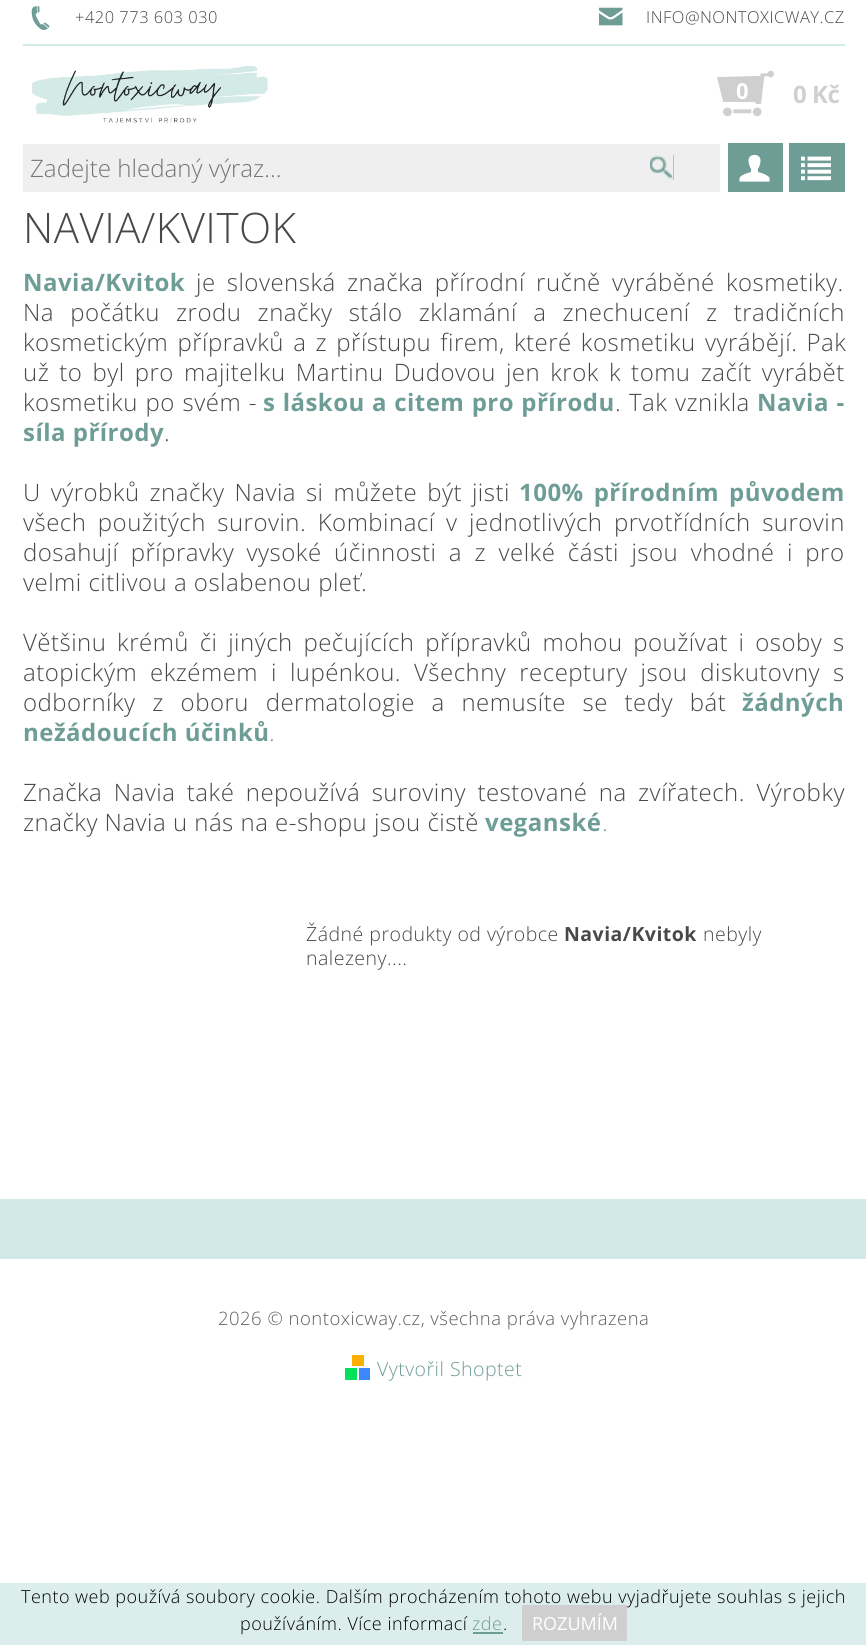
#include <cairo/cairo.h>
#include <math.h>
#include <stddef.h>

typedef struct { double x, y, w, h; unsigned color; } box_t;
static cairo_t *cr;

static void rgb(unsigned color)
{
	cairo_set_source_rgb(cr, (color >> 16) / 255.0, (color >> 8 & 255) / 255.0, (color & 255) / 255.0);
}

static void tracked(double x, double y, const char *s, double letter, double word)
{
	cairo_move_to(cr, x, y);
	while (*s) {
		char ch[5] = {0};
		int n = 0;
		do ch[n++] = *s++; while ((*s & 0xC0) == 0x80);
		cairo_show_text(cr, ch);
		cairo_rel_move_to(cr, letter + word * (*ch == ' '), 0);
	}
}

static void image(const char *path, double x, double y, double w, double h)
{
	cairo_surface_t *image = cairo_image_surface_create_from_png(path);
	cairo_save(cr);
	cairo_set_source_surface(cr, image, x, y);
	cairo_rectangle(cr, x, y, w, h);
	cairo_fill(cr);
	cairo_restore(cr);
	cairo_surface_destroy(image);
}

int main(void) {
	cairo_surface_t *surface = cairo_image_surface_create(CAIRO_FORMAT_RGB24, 866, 1645);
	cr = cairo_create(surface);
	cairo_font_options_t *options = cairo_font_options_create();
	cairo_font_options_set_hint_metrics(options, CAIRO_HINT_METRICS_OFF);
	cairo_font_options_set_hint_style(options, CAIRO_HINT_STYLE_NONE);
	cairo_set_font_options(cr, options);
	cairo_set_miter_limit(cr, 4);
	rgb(0xffffff);
	cairo_paint(cr);
	rgb(0xd2eae7);
	cairo_rectangle(cr, 23, 44, 822, 2);
	cairo_fill(cr);
	image("img/1.png", 31, 6, 19, 24);
	image("img/2.png", 599, 7, 24, 19);
	image("img/3.png", 32, 65, 236, 58);
	image("img/4.png", 717, 70, 57, 47);
	rgb(0xefefef);
	cairo_rectangle(cr, 23, 144, 697, 48);
	cairo_fill(cr);
	rgb(0x6e9d96);
	cairo_rectangle(cr, 650, 155, 24, 25);
	cairo_fill(cr);
	image("img/5.png", 650, 155, 24, 25);
	cairo_rectangle(cr, 728, 143, 55, 49);
	cairo_fill(cr);
	image("img/6.png", 739, 154, 31, 28);
	cairo_rectangle(cr, 789, 143, 56, 49);
	cairo_fill(cr);
	image("img/7.png", 801, 156, 30, 25);
	{
		static const box_t items[] = {
			{0, 1199, 866, 60, 0xd2eae7},
			{352, 1355, 12, 11, 0xfcaf00},
			{345, 1368, 12, 12, 0x00e25a},
			{359, 1368, 11, 12, 0x3b88ff},
			{0, 1583, 866, 62, 0xdbeeec},
			{473, 1632, 30, 2, 0x6e9d96},
		};
		for (size_t i = 0; i < sizeof items / sizeof *items; i++) {
			rgb(items[i].color);
			cairo_rectangle(cr, items[i].x, items[i].y, items[i].w, items[i].h);
			cairo_fill(cr);
		}
	}
	cairo_select_font_face(cr, "Open Sans Light", CAIRO_FONT_SLANT_NORMAL, CAIRO_FONT_WEIGHT_NORMAL);
	cairo_set_font_size(cr, 16.5);
	rgb(0x484848);
	tracked(75, 23, "+420 773 603 030", 0.48, 0);
	tracked(646, 23, "INFO@NONTOXICWAY.CZ", 0.48, 0);
	cairo_select_font_face(cr, "Open Sans", CAIRO_FONT_SLANT_NORMAL, CAIRO_FONT_WEIGHT_BOLD);
	cairo_set_font_size(cr, 22);
	rgb(0xffffff);
	tracked(736, 99, "0", -0.5, 0);
	cairo_set_font_size(cr, 24);
	rgb(0xcfcfcf);
	tracked(793, 103, "0 Kč", -0.5, 0);
	cairo_select_font_face(cr, "Open Sans Light", CAIRO_FONT_SLANT_NORMAL, CAIRO_FONT_WEIGHT_NORMAL);
	cairo_set_font_size(cr, 24.1);
	rgb(0x757575);
	cairo_move_to(cr, 30, 177);
	cairo_show_text(cr, "Zadejte hledaný výraz...");
	cairo_set_font_size(cr, 42);
	rgb(0x484848);
	tracked(23, 243, "NAVIA/KVITOK", 0.48, 0);
	cairo_select_font_face(cr, "Open Sans", CAIRO_FONT_SLANT_NORMAL, CAIRO_FONT_WEIGHT_BOLD);
	cairo_set_font_size(cr, 24);
	rgb(0x6e9d96);
	tracked(23, 291, "Navia/Kvitok", 0.48, 0);
	cairo_select_font_face(cr, "Open Sans Light", CAIRO_FONT_SLANT_NORMAL, CAIRO_FONT_WEIGHT_NORMAL);
	rgb(0x484848);
	tracked(196, 291, "je slovenská značka přírodní ručně vyráběné kosmetiky.", 0.48, 4.5);
	tracked(23, 321, "Na počátku zrodu značky stálo zklamání a znechucení z tradičních", 0.48, 9.5);
	tracked(23, 351, "kosmetickým přípravků a z přístupu firem, které kosmetiku vyrábějí. Pak", 0.48, 2.5);
	tracked(23, 381, "už to byl pro majitelku Martinu Dudovou jen krok k tomu začít vyrábět", 0.48, 3.4);
	tracked(23, 411, "kosmetiku po svém -", 0.48, 1);
	cairo_select_font_face(cr, "Open Sans", CAIRO_FONT_SLANT_NORMAL, CAIRO_FONT_WEIGHT_BOLD);
	rgb(0x6e9d96);
	tracked(263, 411, "s láskou a citem pro přírodu", 0.48, 0.5);
	cairo_select_font_face(cr, "Open Sans Light", CAIRO_FONT_SLANT_NORMAL, CAIRO_FONT_WEIGHT_NORMAL);
	rgb(0x484848);
	tracked(615, 411, ". Tak vznikla", 0.48, 1);
	cairo_select_font_face(cr, "Open Sans", CAIRO_FONT_SLANT_NORMAL, CAIRO_FONT_WEIGHT_BOLD);
	rgb(0x6e9d96);
	tracked(757, 411, "Navia -", 0.48, 1);
	tracked(23, 441, "síla přírody", 0.48, 0);
	cairo_select_font_face(cr, "Open Sans Light", CAIRO_FONT_SLANT_NORMAL, CAIRO_FONT_WEIGHT_NORMAL);
	rgb(0x484848);
	tracked(164, 441, ".", 0.48, 0);
	tracked(23, 501, "U výrobků značky Navia si můžete být jisti", 0.48, 3.25);
	cairo_select_font_face(cr, "Open Sans", CAIRO_FONT_SLANT_NORMAL, CAIRO_FONT_WEIGHT_BOLD);
	rgb(0x6e9d96);
	tracked(519, 501, "100% přírodním původem", 0.48, 3.25);
	cairo_select_font_face(cr, "Open Sans Light", CAIRO_FONT_SLANT_NORMAL, CAIRO_FONT_WEIGHT_NORMAL);
	rgb(0x484848);
	tracked(23, 531, "všech použitých surovin. Kombinací v jednotlivých prvotřídních surovin", 0.48, 4.75);
	tracked(23, 561, "dosahují přípravky vysoké účinnosti a z velké části jsou vhodné i pro", 0.48, 5.75);
	tracked(23, 591, "velmi citlivou a oslabenou pleť.", 0.48, 0);
	tracked(23, 651, "Většinu krémů či jiných pečujících přípravků mohou používat i osoby s", 0.48, 4);
	tracked(23, 681, "atopickým ekzémem i lupénkou. Všechny receptury jsou diskutovny s", 0.48, 6.25);
	tracked(23, 711, "odborníky z oboru dermatologie a nemusíte se tedy bát", 0.48, 10);
	cairo_select_font_face(cr, "Open Sans", CAIRO_FONT_SLANT_NORMAL, CAIRO_FONT_WEIGHT_BOLD);
	rgb(0x6e9d96);
	tracked(742, 711, "žádných", 0.48, 0);
	tracked(23, 741, "nežádoucích účinků", 0.48, 0);
	cairo_select_font_face(cr, "Open Sans Light", CAIRO_FONT_SLANT_NORMAL, CAIRO_FONT_WEIGHT_NORMAL);
	tracked(269, 741, ".", 0.48, 0);
	rgb(0x484848);
	tracked(23, 801, "Značka Navia také nepoužívá suroviny testované na zvířatech. Výrobky", 0.48, 4.75);
	tracked(23, 831, "značky Navia u nás na e-shopu jsou čistě", 0.48, 0);
	cairo_select_font_face(cr, "Open Sans", CAIRO_FONT_SLANT_NORMAL, CAIRO_FONT_WEIGHT_BOLD);
	rgb(0x6e9d96);
	tracked(485, 831, "veganské", 0.48, 0);
	cairo_select_font_face(cr, "Open Sans Light", CAIRO_FONT_SLANT_NORMAL, CAIRO_FONT_WEIGHT_NORMAL);
	tracked(602, 831, ".", 0.48, 0);
	cairo_set_font_size(cr, 19.5);
	rgb(0x484848);
	tracked(306, 941, "Žádné produkty od výrobce", 0.48, 0);
	cairo_select_font_face(cr, "Open Sans", CAIRO_FONT_SLANT_NORMAL, CAIRO_FONT_WEIGHT_BOLD);
	tracked(564, 941, "Navia/Kvitok", 0.48, 0);
	cairo_select_font_face(cr, "Open Sans Light", CAIRO_FONT_SLANT_NORMAL, CAIRO_FONT_WEIGHT_NORMAL);
	tracked(703, 941, "nebyly", 0.48, 0);
	tracked(306, 965, "nalezeny....", 0.48, 0);
	cairo_set_font_size(cr, 18.5);
	rgb(0x5e5e5e);
	tracked(218, 1325, "2026 © nontoxicway.cz, všechna práva vyhrazena", 0.48, 0);
	cairo_set_font_size(cr, 19.5);
	rgb(0x6e9d96);
	tracked(377, 1376, "Vytvořil Shoptet", 0.48, 0);
	cairo_set_font_size(cr, 18);
	rgb(0x000000);
	tracked(21, 1603, "Tento web používá soubory cookie. Dalším procházením tohoto webu vyjadřujete souhlas s jejich", 0.48, 0);
	tracked(240, 1630, "používáním. Více informací", 0.48, 0);
	rgb(0x6e9d96);
	tracked(472, 1630, "zde", 0.48, 0);
	rgb(0x000000);
	tracked(503, 1630, ".", 0.48, 0);
	rgb(0xcfcfcf);
	cairo_rectangle(cr, 522, 1605, 105, 36);
	cairo_fill(cr);
	cairo_select_font_face(cr, "Open Sans", CAIRO_FONT_SLANT_NORMAL, CAIRO_FONT_WEIGHT_NORMAL);
	rgb(0xffffff);
	cairo_move_to(cr, 532, 1630);
	cairo_show_text(cr, "ROZUMÍM");
	cairo_surface_write_to_png(surface, "page.png");
	cairo_font_options_destroy(options);
	cairo_destroy(cr);
	cairo_surface_destroy(surface);
	return 0;
}
